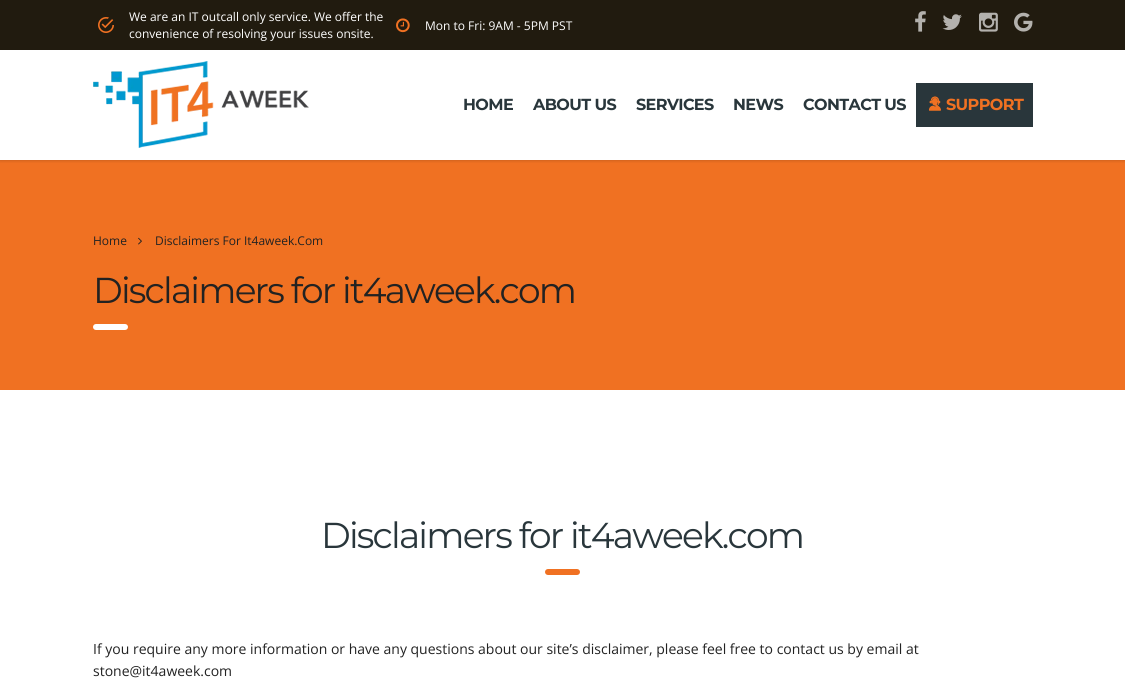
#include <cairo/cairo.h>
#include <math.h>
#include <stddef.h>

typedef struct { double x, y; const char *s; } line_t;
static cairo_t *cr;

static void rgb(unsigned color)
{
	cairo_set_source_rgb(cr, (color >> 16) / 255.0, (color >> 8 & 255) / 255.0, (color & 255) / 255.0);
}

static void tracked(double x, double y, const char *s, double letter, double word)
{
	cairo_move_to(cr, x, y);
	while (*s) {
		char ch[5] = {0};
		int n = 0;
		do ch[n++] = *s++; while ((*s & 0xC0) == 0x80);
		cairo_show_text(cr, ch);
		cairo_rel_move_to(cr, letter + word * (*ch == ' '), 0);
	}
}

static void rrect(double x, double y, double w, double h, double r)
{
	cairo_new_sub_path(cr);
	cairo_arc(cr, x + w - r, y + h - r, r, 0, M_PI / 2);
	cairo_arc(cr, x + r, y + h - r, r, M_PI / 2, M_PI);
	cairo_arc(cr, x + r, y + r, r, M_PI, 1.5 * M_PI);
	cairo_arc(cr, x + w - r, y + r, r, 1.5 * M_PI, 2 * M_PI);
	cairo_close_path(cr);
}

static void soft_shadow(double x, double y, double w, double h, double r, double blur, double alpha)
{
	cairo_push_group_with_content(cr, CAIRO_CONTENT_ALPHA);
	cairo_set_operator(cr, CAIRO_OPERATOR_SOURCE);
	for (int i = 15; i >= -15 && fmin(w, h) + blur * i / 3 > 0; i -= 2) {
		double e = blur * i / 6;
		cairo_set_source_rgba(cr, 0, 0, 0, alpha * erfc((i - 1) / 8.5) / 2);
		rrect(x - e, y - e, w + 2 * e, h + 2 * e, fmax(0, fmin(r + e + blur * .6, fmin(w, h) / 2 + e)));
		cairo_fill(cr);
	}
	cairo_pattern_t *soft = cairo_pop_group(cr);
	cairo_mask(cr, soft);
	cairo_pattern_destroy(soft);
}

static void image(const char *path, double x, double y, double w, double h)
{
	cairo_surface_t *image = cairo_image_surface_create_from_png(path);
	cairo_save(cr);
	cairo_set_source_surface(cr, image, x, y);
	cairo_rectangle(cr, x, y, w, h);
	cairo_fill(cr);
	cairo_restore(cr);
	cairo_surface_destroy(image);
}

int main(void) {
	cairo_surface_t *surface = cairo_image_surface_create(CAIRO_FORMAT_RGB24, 1125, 688);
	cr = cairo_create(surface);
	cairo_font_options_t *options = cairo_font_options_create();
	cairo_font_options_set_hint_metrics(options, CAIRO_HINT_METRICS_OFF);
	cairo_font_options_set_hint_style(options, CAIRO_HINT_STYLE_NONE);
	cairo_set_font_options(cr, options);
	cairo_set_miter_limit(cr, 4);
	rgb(0xffffff);
	cairo_paint(cr);
	rgb(0xf07122);
	cairo_rectangle(cr, 0, 160, 1125, 230);
	cairo_fill(cr);
	cairo_save(cr);
	cairo_rectangle(cr, 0, 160, 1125, 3);
	cairo_clip(cr);
	rgb(0x000000);
	soft_shadow(0, 51, 1125, 110, 0, 1.5, 0.15);
	cairo_restore(cr);
	rgb(0x211b0f);
	cairo_rectangle(cr, 0, 0, 1125, 50);
	cairo_fill(cr);
	image("img/1.png", 98, 17, 16, 16);
	image("img/2.png", 396, 18, 14, 15);
	image("img/3.png", 915, 11, 11, 21);
	image("img/4.png", 942, 14, 20, 16);
	image("img/5.png", 979, 12, 19, 20);
	image("img/6.png", 1014, 12, 19, 20);
	image("img/7.png", 93, 61, 216, 87);
	rgb(0x29363b);
	cairo_rectangle(cr, 916, 83, 117, 44);
	cairo_fill(cr);
	image("img/8.png", 929, 96, 12, 15);
	image("img/9.png", 138, 237, 4, 8);
	rgb(0xffffff);
	rrect(93, 324, 35, 6, 3);
	cairo_fill(cr);
	rgb(0xf07122);
	rrect(545, 569, 35, 6, 3);
	cairo_fill(cr);
	cairo_select_font_face(cr, "Open Sans", CAIRO_FONT_SLANT_NORMAL, CAIRO_FONT_WEIGHT_NORMAL);
	cairo_set_font_size(cr, 12);
	rgb(0xffffff);
	{
		static const line_t items[] = {
			{129, 21, "We are an IT outcall only service. We offer the"},
			{129, 38, "convenience of resolving your issues onsite."},
			{425, 30, "Mon to Fri: 9AM - 5PM PST"},
		};
		for (size_t i = 0; i < sizeof items / sizeof *items; i++) {
			cairo_move_to(cr, items[i].x, items[i].y);
			cairo_show_text(cr, items[i].s);
		}
	}
	cairo_select_font_face(cr, "Montserrat", CAIRO_FONT_SLANT_NORMAL, CAIRO_FONT_WEIGHT_BOLD);
	cairo_set_font_size(cr, 16);
	rgb(0x29363b);
	{
		static const line_t items[] = {
			{463, 110, "HOME"},
			{533, 110, "ABOUT US"},
			{636, 110, "SERVICES"},
			{733, 110, "NEWS"},
			{803, 110, "CONTACT US"},
		};
		for (size_t i = 0; i < sizeof items / sizeof *items; i++) {
			tracked(items[i].x, items[i].y, items[i].s, -0.6, 0);
		}
	}
	rgb(0xf07122);
	tracked(946, 110, "SUPPORT", -0.6, 0);
	cairo_select_font_face(cr, "Open Sans", CAIRO_FONT_SLANT_NORMAL, CAIRO_FONT_WEIGHT_NORMAL);
	cairo_set_font_size(cr, 12);
	rgb(0x222222);
	cairo_move_to(cr, 93, 245);
	cairo_show_text(cr, "Home");
	cairo_move_to(cr, 155, 245);
	cairo_show_text(cr, "Disclaimers For It4aweek.Com");
	cairo_select_font_face(cr, "Montserrat", CAIRO_FONT_SLANT_NORMAL, CAIRO_FONT_WEIGHT_NORMAL);
	cairo_set_font_size(cr, 36);
	tracked(93, 303, "Disclaimers for it4aweek.com", -1.8, 0);
	rgb(0x29363b);
	tracked(321, 548, "Disclaimers for it4aweek.com", -1.8, 0);
	cairo_select_font_face(cr, "Open Sans", CAIRO_FONT_SLANT_NORMAL, CAIRO_FONT_WEIGHT_NORMAL);
	cairo_set_font_size(cr, 14);
	rgb(0x222222);
	cairo_move_to(cr, 93, 654);
	cairo_show_text(cr, "If you require any more information or have any questions about our site’s disclaimer, please feel free to contact us by email at");
	cairo_move_to(cr, 93, 676);
	cairo_show_text(cr, "stone@it4aweek.com");
	cairo_surface_write_to_png(surface, "page.png");
	cairo_font_options_destroy(options);
	cairo_destroy(cr);
	cairo_surface_destroy(surface);
	return 0;
}
